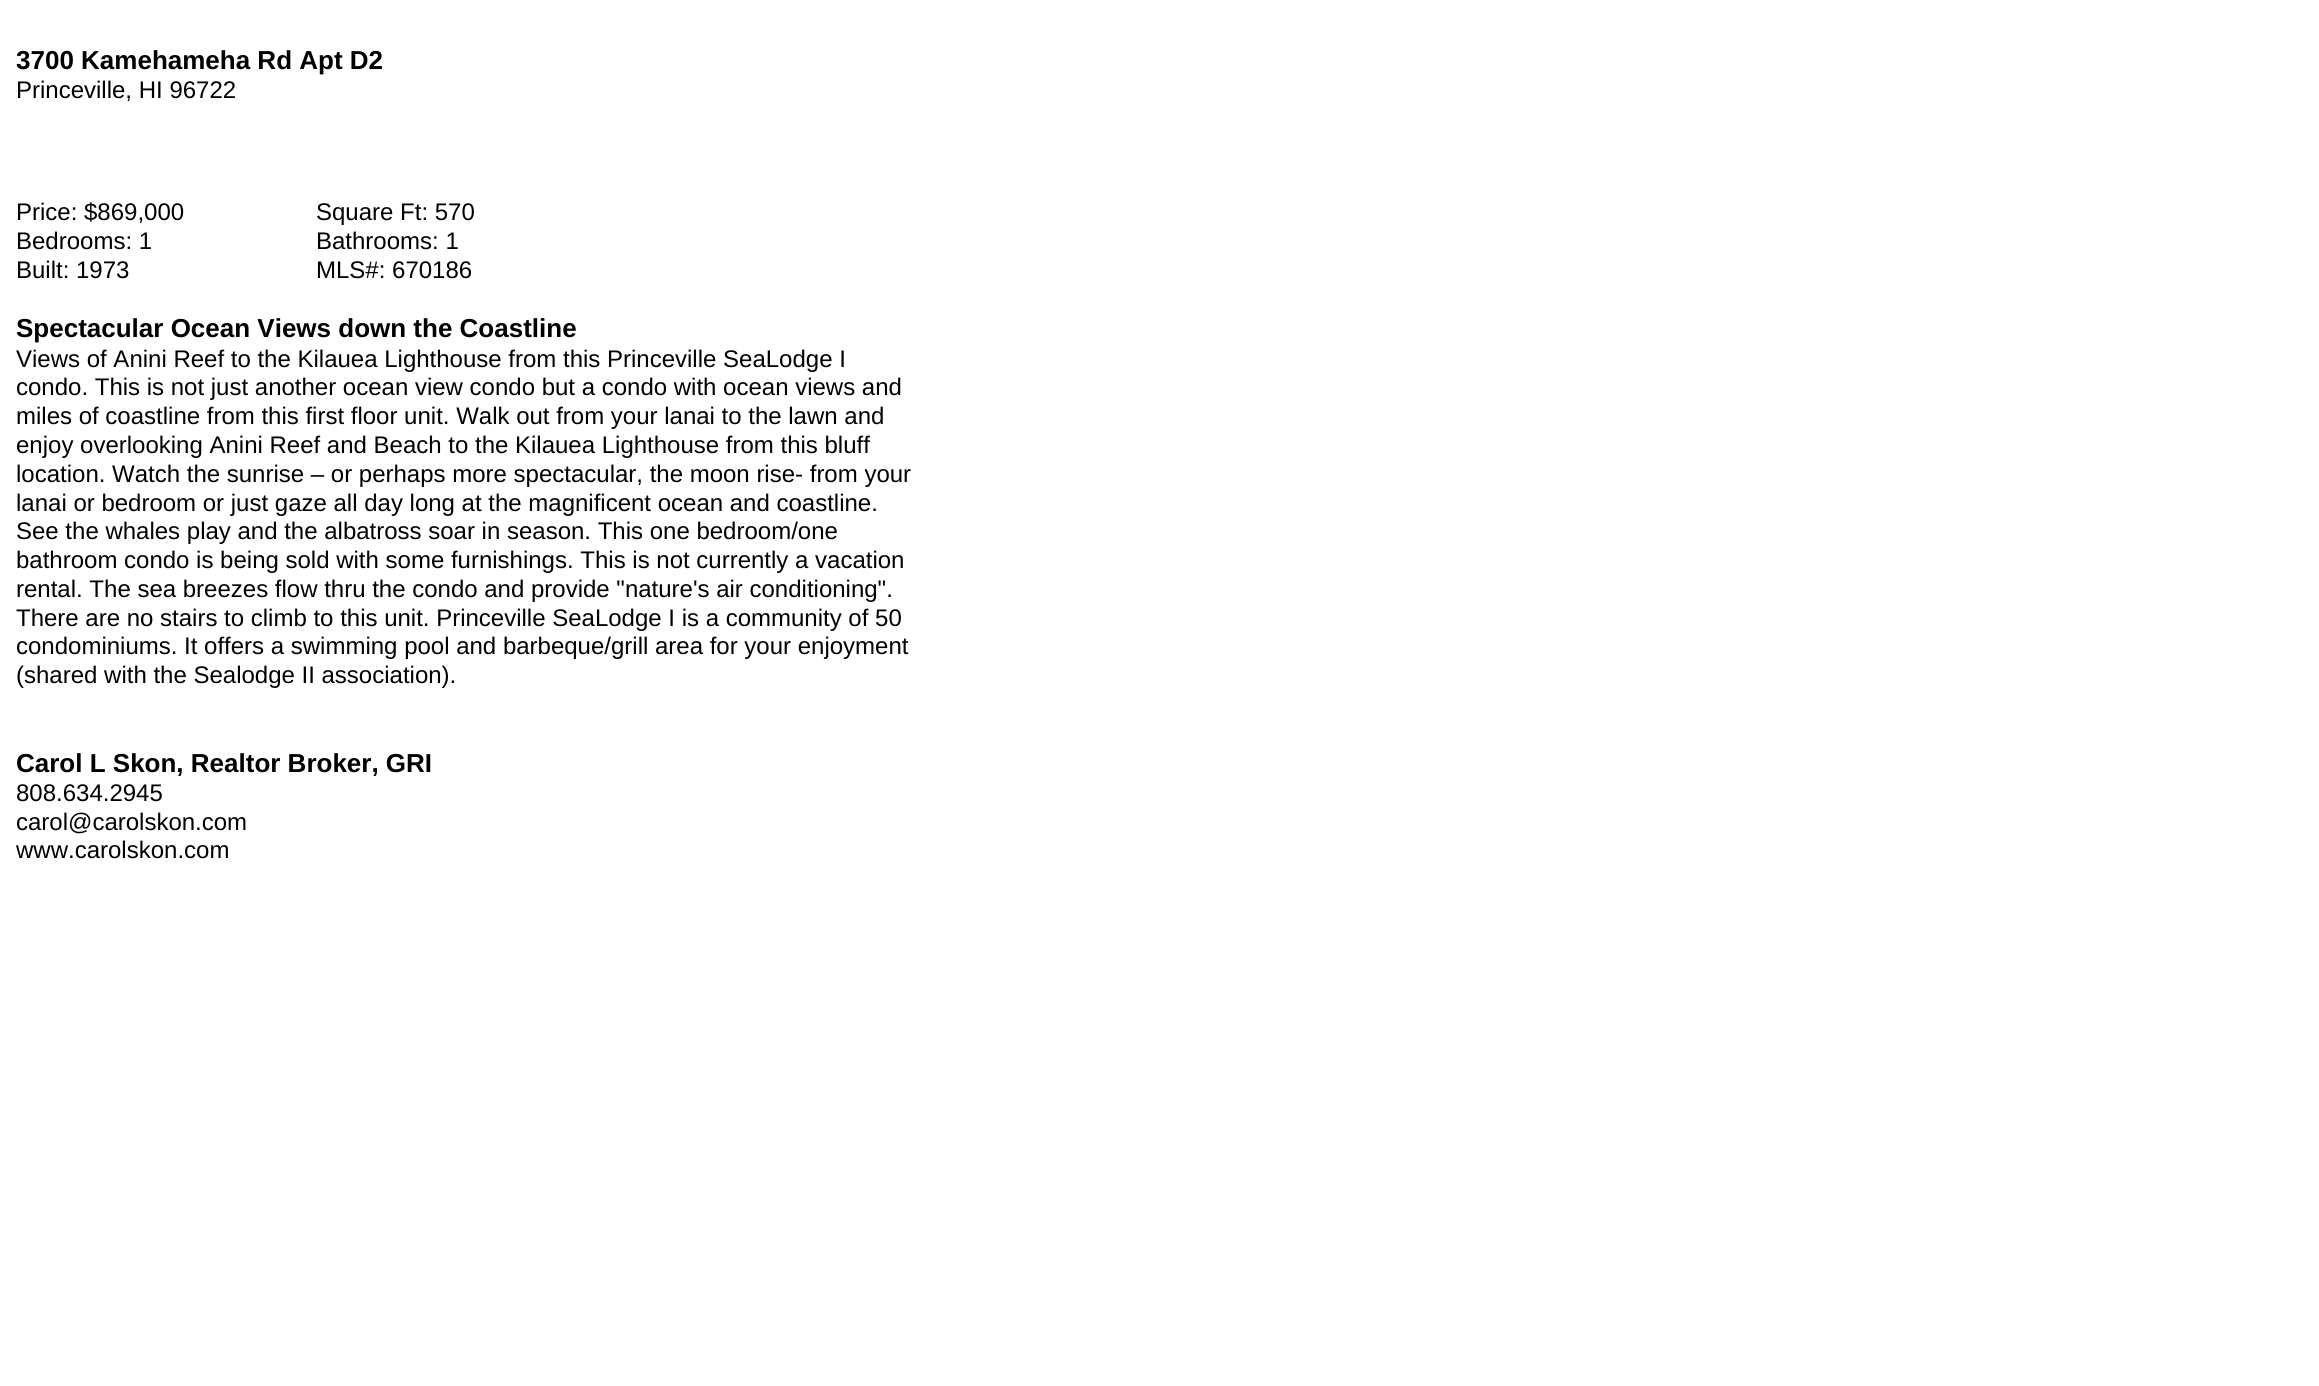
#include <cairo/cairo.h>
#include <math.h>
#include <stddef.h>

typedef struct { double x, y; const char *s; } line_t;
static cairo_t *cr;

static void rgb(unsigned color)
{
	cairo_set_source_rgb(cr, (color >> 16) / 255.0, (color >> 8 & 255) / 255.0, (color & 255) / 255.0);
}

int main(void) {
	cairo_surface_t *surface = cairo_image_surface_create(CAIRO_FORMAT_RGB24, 2319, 1386);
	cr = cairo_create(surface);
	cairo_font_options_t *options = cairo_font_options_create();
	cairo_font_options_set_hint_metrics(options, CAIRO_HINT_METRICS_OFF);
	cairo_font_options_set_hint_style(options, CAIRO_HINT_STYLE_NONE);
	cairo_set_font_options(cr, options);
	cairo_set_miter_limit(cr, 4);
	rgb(0xffffff);
	cairo_paint(cr);
	cairo_select_font_face(cr, "Liberation Sans", CAIRO_FONT_SLANT_NORMAL, CAIRO_FONT_WEIGHT_BOLD);
	cairo_set_font_size(cr, 26);
	rgb(0x000000);
	cairo_move_to(cr, 16, 69);
	cairo_show_text(cr, "3700 Kamehameha Rd Apt D2");
	cairo_select_font_face(cr, "Liberation Sans", CAIRO_FONT_SLANT_NORMAL, CAIRO_FONT_WEIGHT_NORMAL);
	cairo_set_font_size(cr, 24);
	{
		static const line_t items[] = {
			{16, 98, "Princeville, HI 96722"},
			{16, 220, "Price: $869,000"},
			{316, 220, "Square Ft: 570"},
			{16, 249, "Bedrooms: 1"},
			{316, 249, "Bathrooms: 1"},
			{16, 278, "Built: 1973"},
			{316, 278, "MLS#: 670186"},
		};
		for (size_t i = 0; i < sizeof items / sizeof *items; i++) {
			cairo_move_to(cr, items[i].x, items[i].y);
			cairo_show_text(cr, items[i].s);
		}
	}
	cairo_select_font_face(cr, "Liberation Sans", CAIRO_FONT_SLANT_NORMAL, CAIRO_FONT_WEIGHT_BOLD);
	cairo_set_font_size(cr, 26);
	cairo_move_to(cr, 16, 337);
	cairo_show_text(cr, "Spectacular Ocean Views down the Coastline");
	cairo_select_font_face(cr, "Liberation Sans", CAIRO_FONT_SLANT_NORMAL, CAIRO_FONT_WEIGHT_NORMAL);
	cairo_set_font_size(cr, 24);
	{
		static const line_t items[] = {
			{16, 367, "Views of Anini Reef to the Kilauea Lighthouse from this Princeville SeaLodge I"},
			{16, 395, "condo. This is not just another ocean view condo but a condo with ocean views and"},
			{16, 424, "miles of coastline from this first floor unit. Walk out from your lanai to the lawn and"},
			{16, 453, "enjoy overlooking Anini Reef and Beach to the Kilauea Lighthouse from this bluff"},
			{16, 482, "location. Watch the sunrise – or perhaps more spectacular, the moon rise- from your"},
			{16, 511, "lanai or bedroom or just gaze all day long at the magnificent ocean and coastline."},
			{16, 539, "See the whales play and the albatross soar in season. This one bedroom/one"},
			{16, 568, "bathroom condo is being sold with some furnishings. This is not currently a vacation"},
			{16, 597, "rental. The sea breezes flow thru the condo and provide \"nature's air conditioning\"."},
			{16, 626, "There are no stairs to climb to this unit. Princeville SeaLodge I is a community of 50"},
			{16, 654, "condominiums. It offers a swimming pool and barbeque/grill area for your enjoyment"},
			{16, 683, "(shared with the Sealodge II association)."},
		};
		for (size_t i = 0; i < sizeof items / sizeof *items; i++) {
			cairo_move_to(cr, items[i].x, items[i].y);
			cairo_show_text(cr, items[i].s);
		}
	}
	cairo_select_font_face(cr, "Liberation Sans", CAIRO_FONT_SLANT_NORMAL, CAIRO_FONT_WEIGHT_BOLD);
	cairo_set_font_size(cr, 26);
	cairo_move_to(cr, 16, 772);
	cairo_show_text(cr, "Carol L Skon, Realtor Broker, GRI");
	cairo_select_font_face(cr, "Liberation Sans", CAIRO_FONT_SLANT_NORMAL, CAIRO_FONT_WEIGHT_NORMAL);
	cairo_set_font_size(cr, 24);
	{
		static const line_t items[] = {
			{16, 801, "808.634.2945"},
			{16, 830, "carol@carolskon.com"},
			{16, 858, "www.carolskon.com"},
		};
		for (size_t i = 0; i < sizeof items / sizeof *items; i++) {
			cairo_move_to(cr, items[i].x, items[i].y);
			cairo_show_text(cr, items[i].s);
		}
	}
	cairo_surface_write_to_png(surface, "page.png");
	cairo_font_options_destroy(options);
	cairo_destroy(cr);
	cairo_surface_destroy(surface);
	return 0;
}
